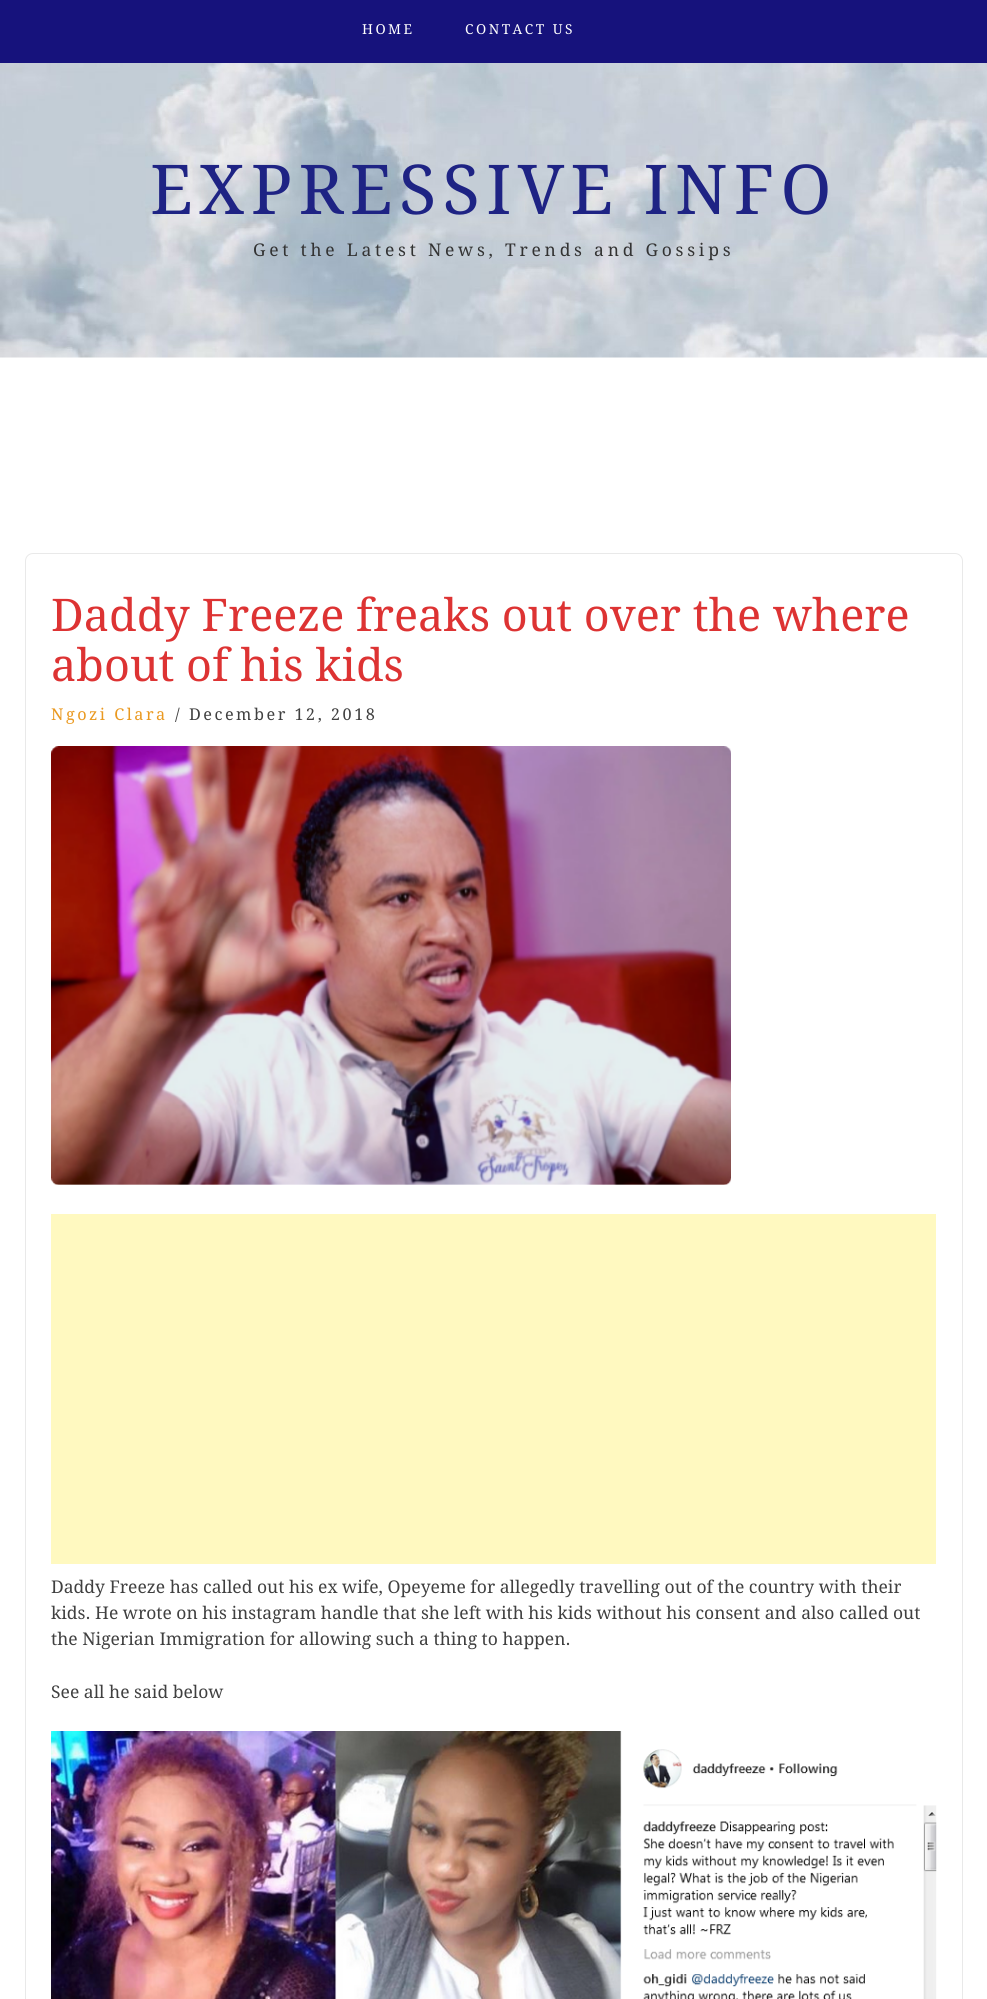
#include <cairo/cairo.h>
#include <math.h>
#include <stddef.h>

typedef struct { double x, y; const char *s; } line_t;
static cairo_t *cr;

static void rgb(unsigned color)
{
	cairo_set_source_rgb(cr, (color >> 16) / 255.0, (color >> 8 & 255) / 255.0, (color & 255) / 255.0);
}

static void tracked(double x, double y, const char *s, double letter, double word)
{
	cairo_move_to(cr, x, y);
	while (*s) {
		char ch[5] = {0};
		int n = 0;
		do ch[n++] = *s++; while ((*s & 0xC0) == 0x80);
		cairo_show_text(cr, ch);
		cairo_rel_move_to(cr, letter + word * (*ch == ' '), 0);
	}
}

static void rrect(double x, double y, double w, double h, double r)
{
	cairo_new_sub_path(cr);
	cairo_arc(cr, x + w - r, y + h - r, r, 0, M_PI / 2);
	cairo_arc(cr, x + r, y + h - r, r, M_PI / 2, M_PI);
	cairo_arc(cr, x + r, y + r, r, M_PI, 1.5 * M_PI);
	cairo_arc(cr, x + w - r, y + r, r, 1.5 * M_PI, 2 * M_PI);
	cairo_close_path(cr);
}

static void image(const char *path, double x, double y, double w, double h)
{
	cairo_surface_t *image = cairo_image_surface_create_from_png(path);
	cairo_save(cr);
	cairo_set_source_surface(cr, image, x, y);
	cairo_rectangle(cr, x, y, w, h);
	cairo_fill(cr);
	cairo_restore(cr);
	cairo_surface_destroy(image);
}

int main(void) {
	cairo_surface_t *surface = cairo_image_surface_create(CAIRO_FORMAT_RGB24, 987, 1999);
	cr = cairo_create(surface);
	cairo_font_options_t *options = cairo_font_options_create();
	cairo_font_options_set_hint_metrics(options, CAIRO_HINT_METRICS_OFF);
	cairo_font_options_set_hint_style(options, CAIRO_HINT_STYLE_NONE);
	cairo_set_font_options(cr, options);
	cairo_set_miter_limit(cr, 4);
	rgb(0xffffff);
	cairo_paint(cr);
	rgb(0x16127c);
	cairo_rectangle(cr, 0, 0, 987, 63);
	cairo_fill(cr);
	image("img/1.png", 0, 63, 987, 295);
	rrect(25.5, 553.5, 937, 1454, 7.5);
	rgb(0xe9e9e9);
	cairo_set_line_width(cr, 1);
	cairo_stroke(cr);
	image("img/2.png", 51, 746, 680, 439);
	rgb(0xfff9c0);
	cairo_rectangle(cr, 51, 1214, 885, 350);
	cairo_fill(cr);
	image("img/3.png", 51, 1731, 886, 268);
	cairo_select_font_face(cr, "Droid Serif", CAIRO_FONT_SLANT_NORMAL, CAIRO_FONT_WEIGHT_NORMAL);
	cairo_set_font_size(cr, 13.75);
	rgb(0xffffff);
	tracked(362, 34, "HOME", 2.5, 0);
	tracked(465, 34, "CONTACT US", 2.5, 0);
	cairo_set_font_size(cr, 68.75);
	rgb(0x1e2384);
	tracked(150, 214, "EXPRESSIVE INFO", 6.25, 0);
	cairo_set_font_size(cr, 17.5);
	rgb(0x333333);
	tracked(253, 256, "Get the Latest News, Trends and Gossips", 3.75, 0);
	cairo_set_font_size(cr, 45);
	rgb(0xdd3333);
	cairo_move_to(cr, 51, 631);
	cairo_show_text(cr, "Daddy Freeze freaks out over the where");
	cairo_move_to(cr, 51, 681);
	cairo_show_text(cr, "about of his kids");
	cairo_set_font_size(cr, 16.25);
	rgb(0xea9920);
	tracked(51, 720, "Ngozi Clara", 2.5, 0);
	rgb(0x404040);
	tracked(175, 720, "/ December 12, 2018", 2.5, 0);
	cairo_set_font_size(cr, 17.5);
	{
		static const line_t items[] = {
			{51, 1593, "Daddy Freeze has called out his ex wife, Opeyeme for allegedly travelling out of the country with their"},
			{51, 1619, "kids. He wrote on his instagram handle that she left with his kids without his consent and also called out"},
			{51, 1645, "the Nigerian Immigration for allowing such a thing to happen."},
			{51, 1698, "See all he said below"},
		};
		for (size_t i = 0; i < sizeof items / sizeof *items; i++) {
			cairo_move_to(cr, items[i].x, items[i].y);
			cairo_show_text(cr, items[i].s);
		}
	}
	cairo_surface_write_to_png(surface, "page.png");
	cairo_font_options_destroy(options);
	cairo_destroy(cr);
	cairo_surface_destroy(surface);
	return 0;
}
